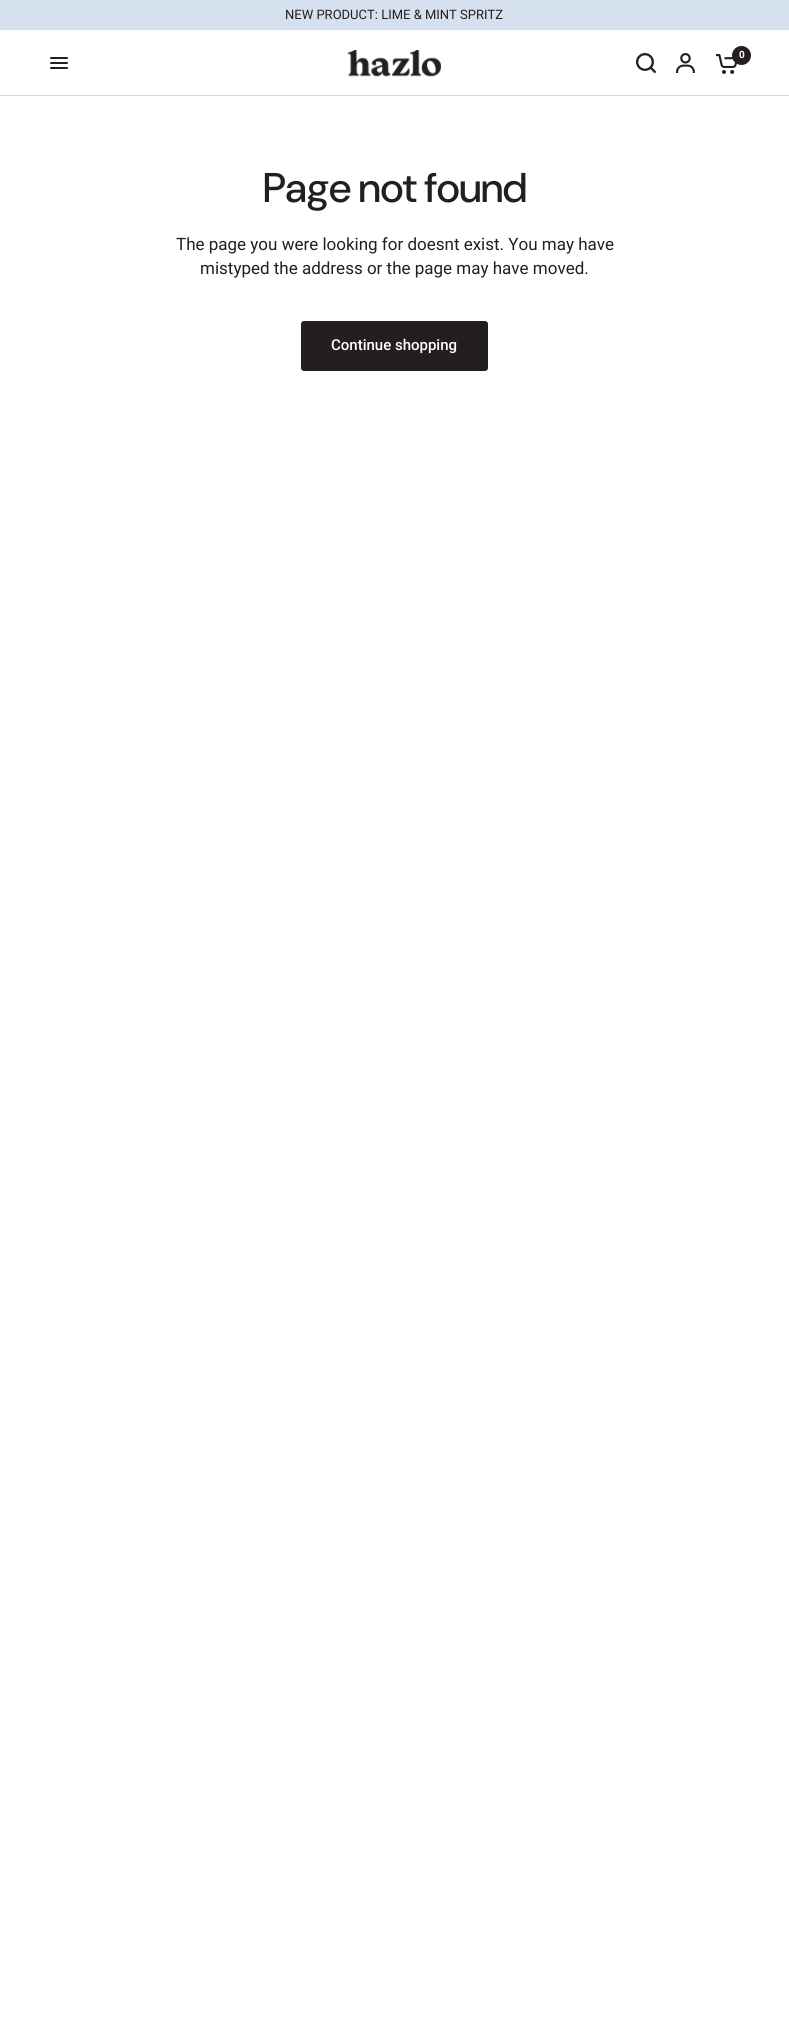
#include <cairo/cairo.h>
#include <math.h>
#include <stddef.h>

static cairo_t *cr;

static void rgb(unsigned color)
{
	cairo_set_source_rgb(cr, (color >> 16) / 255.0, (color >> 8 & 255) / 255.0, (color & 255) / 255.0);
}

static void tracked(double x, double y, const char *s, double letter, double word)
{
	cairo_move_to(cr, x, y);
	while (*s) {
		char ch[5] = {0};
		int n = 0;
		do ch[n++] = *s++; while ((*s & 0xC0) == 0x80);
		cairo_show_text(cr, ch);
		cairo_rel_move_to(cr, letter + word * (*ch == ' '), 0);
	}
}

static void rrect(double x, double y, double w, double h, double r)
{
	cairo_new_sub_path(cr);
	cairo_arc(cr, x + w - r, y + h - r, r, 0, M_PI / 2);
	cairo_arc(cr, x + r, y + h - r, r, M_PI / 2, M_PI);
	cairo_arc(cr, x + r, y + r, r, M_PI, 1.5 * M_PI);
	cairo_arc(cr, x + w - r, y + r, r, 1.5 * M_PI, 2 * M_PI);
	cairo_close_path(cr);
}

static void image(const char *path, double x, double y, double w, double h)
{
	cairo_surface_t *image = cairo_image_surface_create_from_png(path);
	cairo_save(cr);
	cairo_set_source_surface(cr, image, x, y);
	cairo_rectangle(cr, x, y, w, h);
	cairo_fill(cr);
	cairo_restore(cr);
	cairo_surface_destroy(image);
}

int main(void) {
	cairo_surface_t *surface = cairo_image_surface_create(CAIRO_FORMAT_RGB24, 789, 2025);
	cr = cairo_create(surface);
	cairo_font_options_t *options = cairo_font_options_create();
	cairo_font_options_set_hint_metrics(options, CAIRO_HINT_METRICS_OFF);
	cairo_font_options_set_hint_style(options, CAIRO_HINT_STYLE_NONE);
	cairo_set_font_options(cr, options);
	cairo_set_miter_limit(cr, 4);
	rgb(0xffffff);
	cairo_paint(cr);
	rgb(0xd5e1ee);
	cairo_rectangle(cr, 0, 0, 789, 30);
	cairo_fill(cr);
	image("img/1.png", 347, 50, 94, 27);
	image("img/2.png", 636, 53, 20, 20);
	image("img/3.png", 676, 53, 19, 20);
	image("img/4.png", 715, 54, 22, 20);
	rgb(0x231f20);
	cairo_arc(cr, 741.5, 55.5, 9.5, 0, 2 * M_PI);
	cairo_fill(cr);
	rrect(50, 57, 18, 2, 1);
	cairo_fill(cr);
	rrect(50, 62, 18, 2, 1);
	cairo_fill(cr);
	rrect(50, 67, 18, 2, 1);
	cairo_fill(cr);
	rgb(0xd8d8d8);
	cairo_rectangle(cr, 0, 95, 789, 1);
	cairo_fill(cr);
	rgb(0x231f20);
	rrect(301, 321, 187, 50, 3);
	cairo_fill(cr);
	cairo_select_font_face(cr, "Roboto", CAIRO_FONT_SLANT_NORMAL, CAIRO_FONT_WEIGHT_NORMAL);
	cairo_set_font_size(cr, 13);
	cairo_move_to(cr, 285, 19);
	cairo_show_text(cr, "NEW PRODUCT: LIME & MINT SPRITZ");
	cairo_select_font_face(cr, "Roboto", CAIRO_FONT_SLANT_NORMAL, CAIRO_FONT_WEIGHT_BOLD);
	cairo_set_font_size(cr, 10);
	rgb(0xffffff);
	cairo_move_to(cr, 739, 58);
	cairo_show_text(cr, "0");
	cairo_select_font_face(cr, "DM Sans Medium", CAIRO_FONT_SLANT_NORMAL, CAIRO_FONT_WEIGHT_NORMAL);
	cairo_set_font_size(cr, 41.5);
	rgb(0x231f20);
	tracked(263, 202, "Page not found", -0.4, 0);
	cairo_select_font_face(cr, "Roboto", CAIRO_FONT_SLANT_NORMAL, CAIRO_FONT_WEIGHT_NORMAL);
	cairo_set_font_size(cr, 17);
	cairo_move_to(cr, 176, 250);
	cairo_show_text(cr, "The page you were looking for doesnt exist. You may have");
	cairo_move_to(cr, 200, 274);
	cairo_show_text(cr, "mistyped the address or the page may have moved.");
	cairo_select_font_face(cr, "Roboto Medium", CAIRO_FONT_SLANT_NORMAL, CAIRO_FONT_WEIGHT_NORMAL);
	cairo_set_font_size(cr, 15);
	rgb(0xffffff);
	cairo_move_to(cr, 331, 350);
	cairo_show_text(cr, "Continue shopping");
	cairo_surface_write_to_png(surface, "page.png");
	cairo_font_options_destroy(options);
	cairo_destroy(cr);
	cairo_surface_destroy(surface);
	return 0;
}
